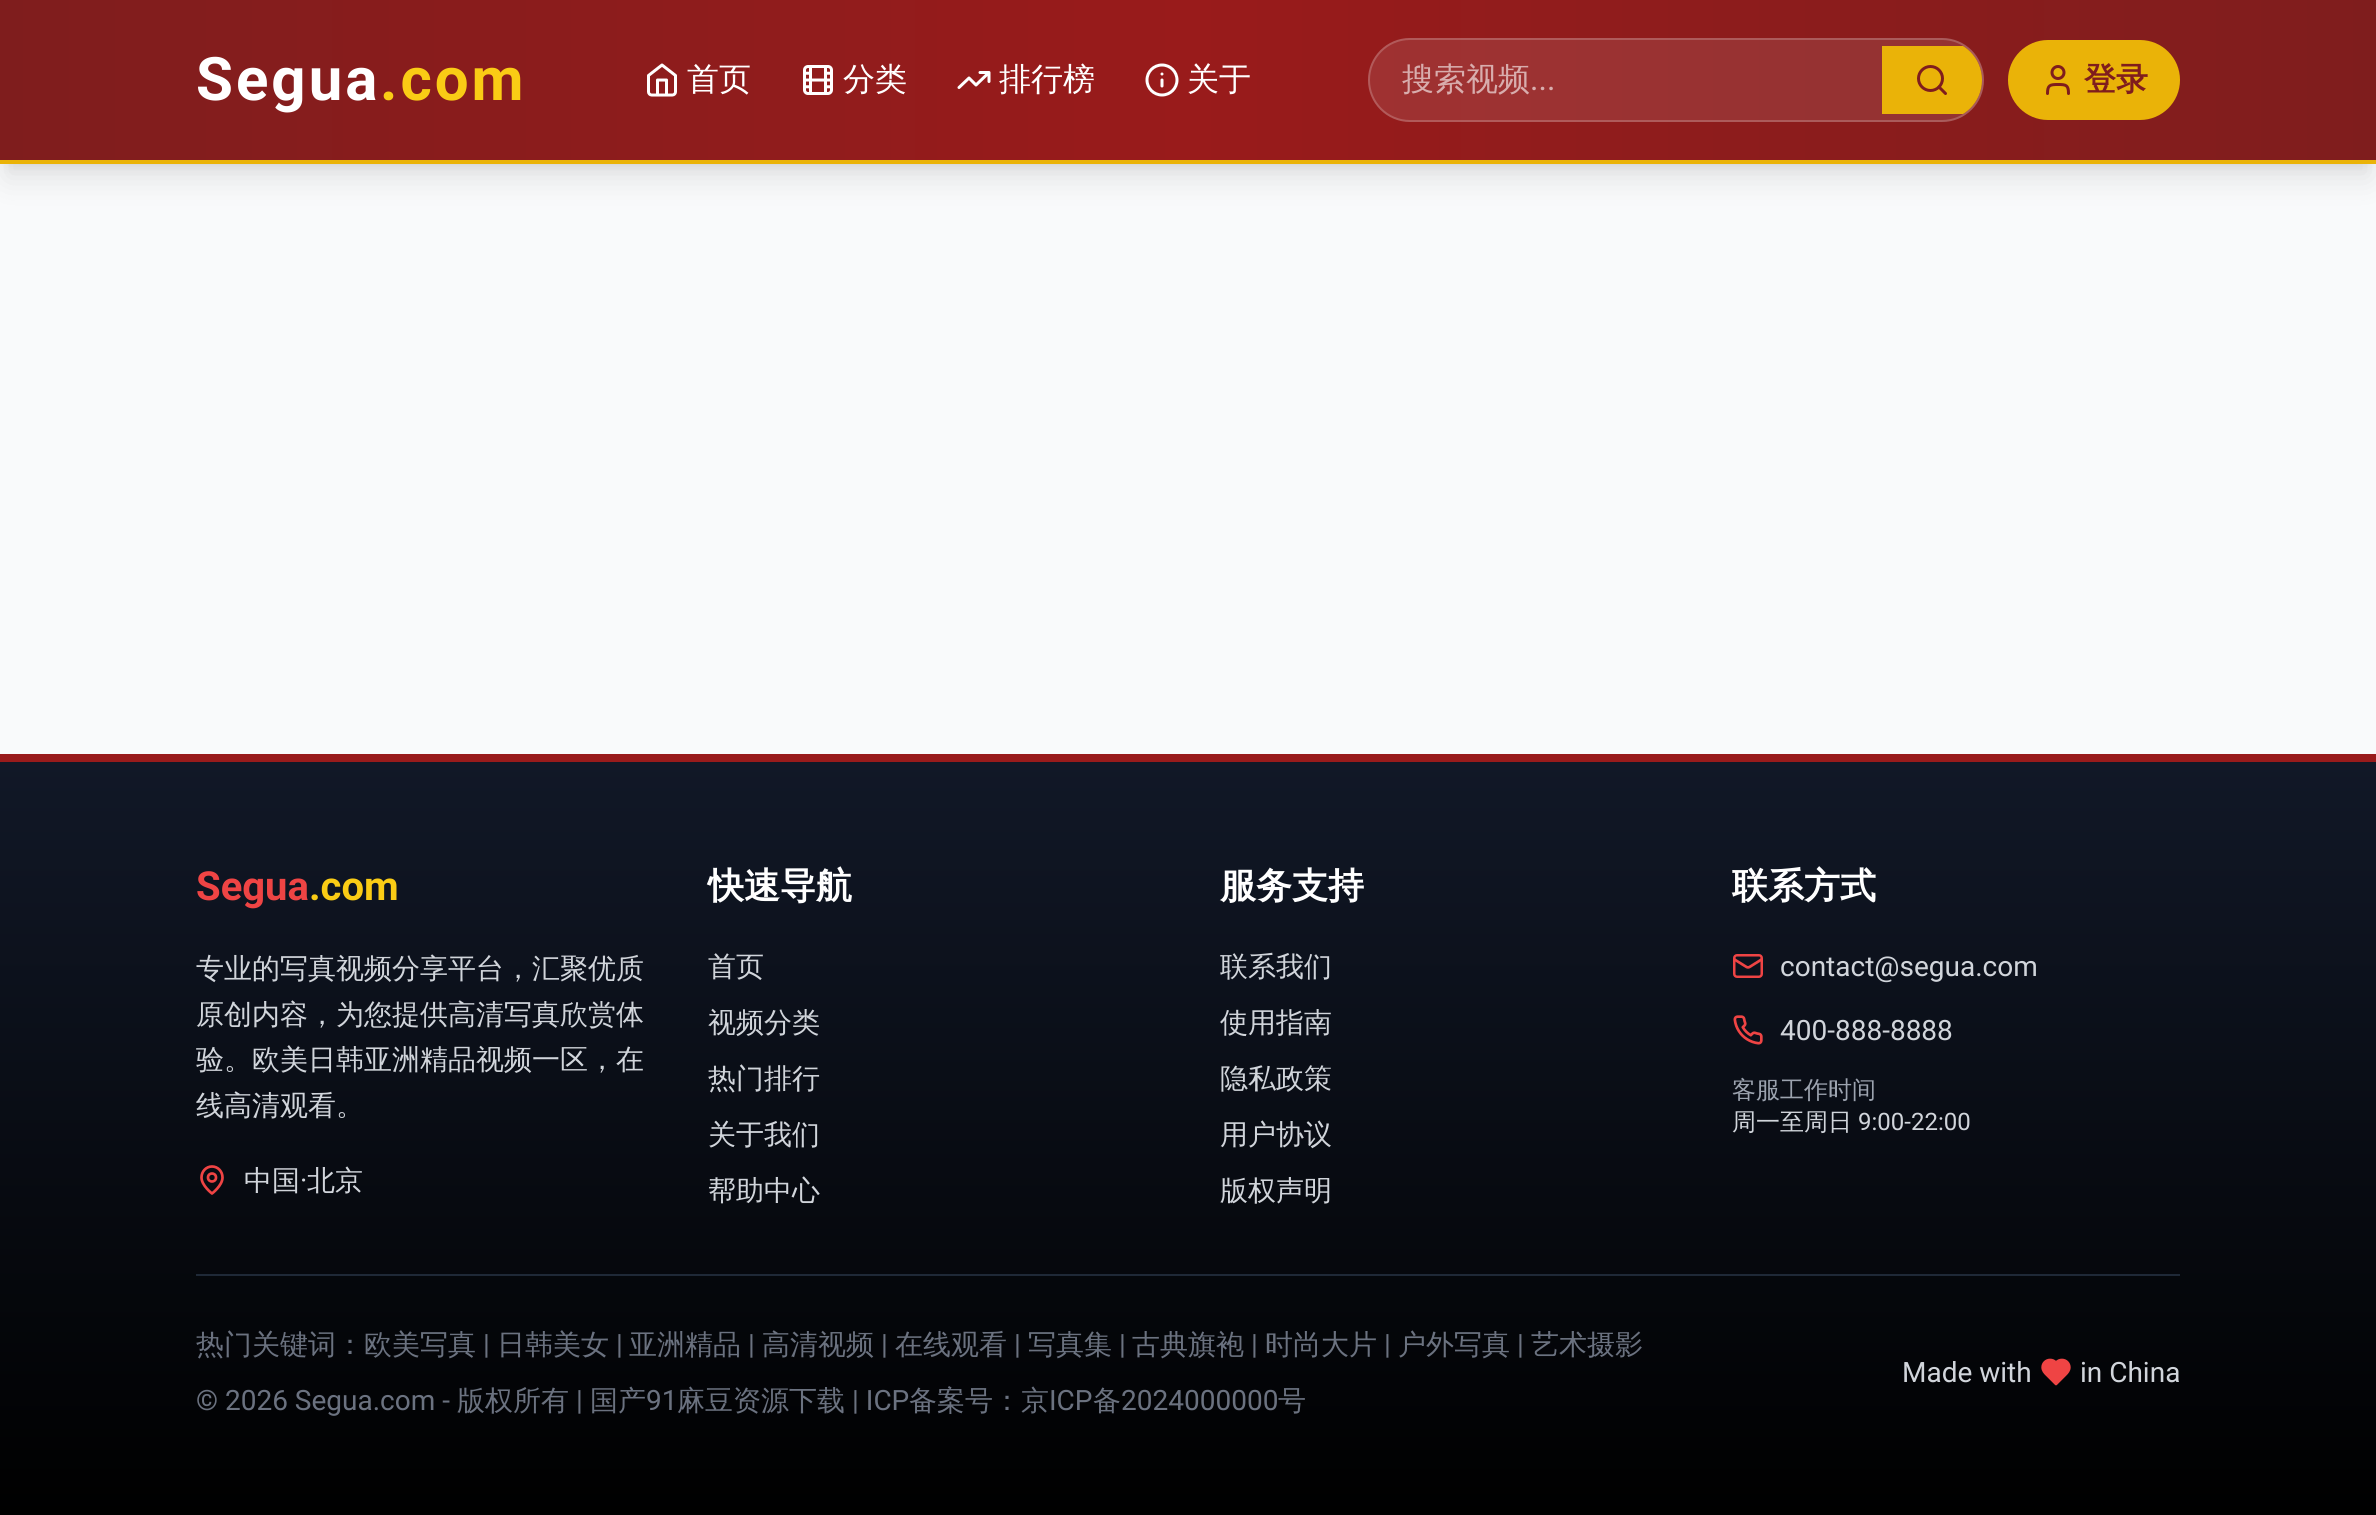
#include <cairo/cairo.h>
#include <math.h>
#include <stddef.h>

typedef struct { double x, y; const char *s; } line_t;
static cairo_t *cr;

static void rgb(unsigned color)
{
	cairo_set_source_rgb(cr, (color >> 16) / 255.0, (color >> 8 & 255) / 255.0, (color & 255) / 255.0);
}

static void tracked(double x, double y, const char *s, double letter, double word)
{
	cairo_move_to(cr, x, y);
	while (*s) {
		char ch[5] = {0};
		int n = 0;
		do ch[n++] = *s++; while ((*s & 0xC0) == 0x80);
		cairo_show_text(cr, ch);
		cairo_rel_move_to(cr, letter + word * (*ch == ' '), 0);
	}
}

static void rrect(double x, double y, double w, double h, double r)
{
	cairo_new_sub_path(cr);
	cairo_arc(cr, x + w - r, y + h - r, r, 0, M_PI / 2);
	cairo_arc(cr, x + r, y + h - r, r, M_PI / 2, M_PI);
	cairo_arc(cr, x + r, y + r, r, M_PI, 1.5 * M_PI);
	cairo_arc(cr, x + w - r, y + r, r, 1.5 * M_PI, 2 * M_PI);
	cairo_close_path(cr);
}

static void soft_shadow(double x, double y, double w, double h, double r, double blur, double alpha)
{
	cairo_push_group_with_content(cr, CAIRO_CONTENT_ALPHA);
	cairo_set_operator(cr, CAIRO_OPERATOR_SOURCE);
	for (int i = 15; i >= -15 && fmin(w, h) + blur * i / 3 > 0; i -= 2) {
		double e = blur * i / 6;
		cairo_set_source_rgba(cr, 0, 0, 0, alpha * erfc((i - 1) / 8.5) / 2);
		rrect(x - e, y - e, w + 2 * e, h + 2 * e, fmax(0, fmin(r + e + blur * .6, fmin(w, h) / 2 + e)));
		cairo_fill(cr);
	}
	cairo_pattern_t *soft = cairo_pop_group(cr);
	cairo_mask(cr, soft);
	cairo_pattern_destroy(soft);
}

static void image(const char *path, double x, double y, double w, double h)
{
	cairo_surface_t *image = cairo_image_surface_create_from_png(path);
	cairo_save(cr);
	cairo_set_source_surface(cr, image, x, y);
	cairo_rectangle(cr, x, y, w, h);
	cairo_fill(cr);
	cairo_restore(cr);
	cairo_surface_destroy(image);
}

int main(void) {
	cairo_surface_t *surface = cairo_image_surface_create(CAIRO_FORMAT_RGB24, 2376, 1515);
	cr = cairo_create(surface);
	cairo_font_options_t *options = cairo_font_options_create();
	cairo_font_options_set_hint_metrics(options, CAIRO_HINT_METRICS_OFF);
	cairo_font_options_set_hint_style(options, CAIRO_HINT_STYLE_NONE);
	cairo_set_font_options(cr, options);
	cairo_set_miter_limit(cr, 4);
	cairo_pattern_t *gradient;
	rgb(0xf9fafb);
	cairo_paint(cr);
	rgb(0x000000);
	soft_shadow(8, 16, 2360, 148, 0, 6, 0.1);
	soft_shadow(6, 26, 2364, 152, 0, 15, 0.1);
	gradient = cairo_pattern_create_linear(0, 80, 2376, 80);
	cairo_pattern_add_color_stop_rgba(gradient, 0, 0.498, 0.114, 0.114, 1);
	cairo_pattern_add_color_stop_rgba(gradient, 0.5, 0.6, 0.106, 0.106, 1);
	cairo_pattern_add_color_stop_rgba(gradient, 1, 0.498, 0.114, 0.114, 1);
	cairo_set_source(cr, gradient);
	cairo_pattern_destroy(gradient);
	cairo_rectangle(cr, 0, 0, 2376, 160);
	cairo_fill(cr);
	rgb(0xeab308);
	cairo_rectangle(cr, 0, 160, 2376, 4);
	cairo_fill(cr);
	cairo_new_path(cr);
	cairo_move_to(cr, 648.5, 75.5);
	cairo_line_to(cr, 662, 65);
	cairo_line_to(cr, 675.5, 75.5);
	cairo_line_to(cr, 675.5, 92);
	cairo_curve_to(cr, 675.5, 93.5, 674, 95, 672.5, 95);
	cairo_line_to(cr, 651.5, 95);
	cairo_curve_to(cr, 650, 95, 648.5, 93.5, 648.5, 92);
	cairo_close_path(cr);
	cairo_move_to(cr, 657.5, 95);
	cairo_line_to(cr, 657.5, 80);
	cairo_line_to(cr, 666.5, 80);
	cairo_line_to(cr, 666.5, 95);
	rgb(0xffffff);
	cairo_set_line_width(cr, 3);
	cairo_set_line_cap(cr, CAIRO_LINE_CAP_ROUND);
	cairo_set_line_join(cr, CAIRO_LINE_JOIN_ROUND);
	cairo_stroke(cr);
	image("img/1.png", 803, 65, 30, 30);
	cairo_new_path(cr);
	cairo_move_to(cr, 989, 72.5);
	cairo_line_to(cr, 976, 85);
	cairo_line_to(cr, 969, 78);
	cairo_line_to(cr, 959, 87.5);
	cairo_move_to(cr, 980, 72.5);
	cairo_line_to(cr, 989, 72.5);
	cairo_line_to(cr, 989, 81.5);
	cairo_stroke(cr);
	cairo_arc(cr, 1162, 80, 15, 0, 2 * M_PI);
	cairo_set_line_cap(cr, CAIRO_LINE_CAP_BUTT);
	cairo_set_line_join(cr, CAIRO_LINE_JOIN_MITER);
	cairo_stroke(cr);
	cairo_new_path(cr);
	cairo_move_to(cr, 1162, 86);
	cairo_line_to(cr, 1162, 80);
	cairo_move_to(cr, 1162, 74);
	cairo_line_to(cr, 1162, 74);
	cairo_set_line_cap(cr, CAIRO_LINE_CAP_ROUND);
	cairo_set_line_join(cr, CAIRO_LINE_JOIN_ROUND);
	cairo_stroke(cr);
	cairo_set_source_rgba(cr, 1, 1, 1, 0.1);
	rrect(1368, 38, 616, 84, 42);
	cairo_fill(cr);
	rrect(1369, 39, 614, 82, 41);
	cairo_set_source_rgba(cr, 1, 1, 1, 0.2);
	cairo_set_line_width(cr, 2);
	cairo_set_line_cap(cr, CAIRO_LINE_CAP_BUTT);
	cairo_set_line_join(cr, CAIRO_LINE_JOIN_MITER);
	cairo_stroke(cr);
	cairo_save(cr);
	rrect(1370, 40, 612, 80, 40);
	cairo_clip(cr);
	rgb(0xeab308);
	cairo_rectangle(cr, 1882, 46, 100, 68);
	cairo_fill(cr);
	cairo_restore(cr);
	cairo_arc(cr, 1930.5, 78.5, 12, 0, 2 * M_PI);
	rgb(0x7f1d1d);
	cairo_set_line_width(cr, 3);
	cairo_stroke(cr);
	cairo_new_path(cr);
	cairo_move_to(cr, 1945.5, 93.5);
	cairo_line_to(cr, 1939, 87);
	cairo_set_line_cap(cr, CAIRO_LINE_CAP_ROUND);
	cairo_set_line_join(cr, CAIRO_LINE_JOIN_ROUND);
	cairo_stroke(cr);
	rgb(0xeab308);
	rrect(2008, 40, 172, 80, 40);
	cairo_fill(cr);
	cairo_new_path(cr);
	cairo_move_to(cr, 2068.5, 93.5);
	cairo_curve_to(cr, 2068.5, 85, 2066, 84.5, 2058, 84.5);
	cairo_curve_to(cr, 2050, 84.5, 2047.5, 85, 2047.5, 93.5);
	rgb(0x7f1d1d);
	cairo_stroke(cr);
	cairo_arc(cr, 2058, 72.5, 6, 0, 2 * M_PI);
	cairo_set_line_cap(cr, CAIRO_LINE_CAP_BUTT);
	cairo_set_line_join(cr, CAIRO_LINE_JOIN_MITER);
	cairo_stroke(cr);
	gradient = cairo_pattern_create_linear(1188, 762, 1188, 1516);
	cairo_pattern_add_color_stop_rgba(gradient, 0, 0.067, 0.094, 0.153, 1);
	cairo_pattern_add_color_stop_rgba(gradient, 1, 0, 0, 0, 1);
	cairo_set_source(cr, gradient);
	cairo_pattern_destroy(gradient);
	cairo_rectangle(cr, 0, 762, 2376, 753);
	cairo_fill(cr);
	rgb(0x991b1b);
	cairo_rectangle(cr, 0, 754, 2376, 8);
	cairo_fill(cr);
	cairo_new_path(cr);
	cairo_move_to(cr, 222.5, 1177.5);
	cairo_curve_to(cr, 222.5, 1185.5, 212, 1193.5, 212, 1193.5);
	cairo_curve_to(cr, 212, 1193.5, 201.5, 1185.5, 201.5, 1177.5);
	cairo_curve_to(cr, 201.5, 1171.5, 206, 1166.5, 212, 1166.5);
	cairo_curve_to(cr, 218, 1166.5, 222.5, 1171.5, 222.5, 1177.5);
	cairo_close_path(cr);
	rgb(0xef4444);
	cairo_set_line_width(cr, 2.7);
	cairo_set_line_cap(cr, CAIRO_LINE_CAP_ROUND);
	cairo_set_line_join(cr, CAIRO_LINE_JOIN_ROUND);
	cairo_stroke(cr);
	cairo_arc(cr, 212, 1177.5, 4, 0, 2 * M_PI);
	cairo_set_line_cap(cr, CAIRO_LINE_CAP_BUTT);
	cairo_set_line_join(cr, CAIRO_LINE_JOIN_MITER);
	cairo_stroke(cr);
	rrect(1734.25, 955.25, 27.5, 21.5, 2.75);
	cairo_set_line_width(cr, 2.5);
	cairo_stroke(cr);
	cairo_new_path(cr);
	cairo_move_to(cr, 1761.5, 959.5);
	cairo_line_to(cr, 1749.5, 967);
	cairo_curve_to(cr, 1748.5, 967.5, 1747.5, 967.5, 1746.5, 967);
	cairo_line_to(cr, 1734.5, 959.5);
	cairo_set_line_width(cr, 2.7);
	cairo_set_line_cap(cr, CAIRO_LINE_CAP_ROUND);
	cairo_set_line_join(cr, CAIRO_LINE_JOIN_ROUND);
	cairo_stroke(cr);
	image("img/2.png", 1733, 1015, 30, 30);
	rgb(0x1f2937);
	cairo_rectangle(cr, 196, 1274, 1984, 2);
	cairo_fill(cr);
	image("img/3.png", 2041, 1358, 30, 28);
	cairo_select_font_face(cr, "Roboto", CAIRO_FONT_SLANT_NORMAL, CAIRO_FONT_WEIGHT_BOLD);
	cairo_set_font_size(cr, 60);
	rgb(0xffffff);
	tracked(196, 100, "Segua", 3, 0);
	rgb(0xfacc15);
	tracked(380, 100, ".com", 3, 0);
	cairo_select_font_face(cr, "WenQuanYi Zen Hei Medium", CAIRO_FONT_SLANT_NORMAL, CAIRO_FONT_WEIGHT_NORMAL);
	cairo_set_font_size(cr, 32);
	rgb(0xffffff);
	{
		static const line_t items[] = {
			{687, 90, "首页"},
			{843, 90, "分类"},
			{999, 90, "排行榜"},
			{1187, 90, "关于"},
		};
		for (size_t i = 0; i < sizeof items / sizeof *items; i++) {
			cairo_move_to(cr, items[i].x, items[i].y);
			cairo_show_text(cr, items[i].s);
		}
	}
	rgb(0xd8adad);
	cairo_move_to(cr, 1402, 90);
	cairo_show_text(cr, "搜索视频");
	cairo_select_font_face(cr, "Roboto", CAIRO_FONT_SLANT_NORMAL, CAIRO_FONT_WEIGHT_NORMAL);
	cairo_move_to(cr, 1530, 90);
	cairo_show_text(cr, "...");
	cairo_select_font_face(cr, "WenQuanYi Zen Hei", CAIRO_FONT_SLANT_NORMAL, CAIRO_FONT_WEIGHT_BOLD);
	rgb(0x7f1d1d);
	cairo_move_to(cr, 2084, 90);
	cairo_show_text(cr, "登录");
	cairo_select_font_face(cr, "Roboto", CAIRO_FONT_SLANT_NORMAL, CAIRO_FONT_WEIGHT_BOLD);
	cairo_set_font_size(cr, 40);
	rgb(0xef4444);
	cairo_move_to(cr, 196, 900);
	cairo_show_text(cr, "Segua");
	rgb(0xfacc15);
	cairo_move_to(cr, 309, 900);
	cairo_show_text(cr, ".com");
	cairo_select_font_face(cr, "WenQuanYi Zen Hei Medium", CAIRO_FONT_SLANT_NORMAL, CAIRO_FONT_WEIGHT_NORMAL);
	cairo_set_font_size(cr, 28);
	rgb(0xd1d5db);
	{
		static const line_t items[] = {
			{196, 978, "专业的写真视频分享平台，汇聚优质"},
			{196, 1024, "原创内容，为您提供高清写真欣赏体"},
			{196, 1069, "验。欧美日韩亚洲精品视频一区，在"},
			{196, 1115, "线高清观看。"},
			{244, 1190, "中国"},
		};
		for (size_t i = 0; i < sizeof items / sizeof *items; i++) {
			cairo_move_to(cr, items[i].x, items[i].y);
			cairo_show_text(cr, items[i].s);
		}
	}
	cairo_select_font_face(cr, "Roboto", CAIRO_FONT_SLANT_NORMAL, CAIRO_FONT_WEIGHT_NORMAL);
	cairo_move_to(cr, 300, 1190);
	cairo_show_text(cr, "·");
	cairo_select_font_face(cr, "WenQuanYi Zen Hei Medium", CAIRO_FONT_SLANT_NORMAL, CAIRO_FONT_WEIGHT_NORMAL);
	cairo_move_to(cr, 307, 1190);
	cairo_show_text(cr, "北京");
	cairo_select_font_face(cr, "WenQuanYi Zen Hei", CAIRO_FONT_SLANT_NORMAL, CAIRO_FONT_WEIGHT_BOLD);
	cairo_set_font_size(cr, 36);
	rgb(0xffffff);
	cairo_move_to(cr, 708, 898);
	cairo_show_text(cr, "快速导航");
	cairo_select_font_face(cr, "WenQuanYi Zen Hei Medium", CAIRO_FONT_SLANT_NORMAL, CAIRO_FONT_WEIGHT_NORMAL);
	cairo_set_font_size(cr, 28);
	rgb(0xd1d5db);
	{
		static const line_t items[] = {
			{708, 976, "首页"},
			{708, 1032, "视频分类"},
			{708, 1088, "热门排行"},
			{708, 1144, "关于我们"},
			{708, 1200, "帮助中心"},
		};
		for (size_t i = 0; i < sizeof items / sizeof *items; i++) {
			cairo_move_to(cr, items[i].x, items[i].y);
			cairo_show_text(cr, items[i].s);
		}
	}
	cairo_select_font_face(cr, "WenQuanYi Zen Hei", CAIRO_FONT_SLANT_NORMAL, CAIRO_FONT_WEIGHT_BOLD);
	cairo_set_font_size(cr, 36);
	rgb(0xffffff);
	cairo_move_to(cr, 1220, 898);
	cairo_show_text(cr, "服务支持");
	cairo_select_font_face(cr, "WenQuanYi Zen Hei Medium", CAIRO_FONT_SLANT_NORMAL, CAIRO_FONT_WEIGHT_NORMAL);
	cairo_set_font_size(cr, 28);
	rgb(0xd1d5db);
	{
		static const line_t items[] = {
			{1220, 976, "联系我们"},
			{1220, 1032, "使用指南"},
			{1220, 1088, "隐私政策"},
			{1220, 1144, "用户协议"},
			{1220, 1200, "版权声明"},
		};
		for (size_t i = 0; i < sizeof items / sizeof *items; i++) {
			cairo_move_to(cr, items[i].x, items[i].y);
			cairo_show_text(cr, items[i].s);
		}
	}
	cairo_select_font_face(cr, "WenQuanYi Zen Hei", CAIRO_FONT_SLANT_NORMAL, CAIRO_FONT_WEIGHT_BOLD);
	cairo_set_font_size(cr, 36);
	rgb(0xffffff);
	cairo_move_to(cr, 1732, 898);
	cairo_show_text(cr, "联系方式");
	cairo_select_font_face(cr, "Roboto", CAIRO_FONT_SLANT_NORMAL, CAIRO_FONT_WEIGHT_NORMAL);
	cairo_set_font_size(cr, 28);
	rgb(0xd1d5db);
	cairo_move_to(cr, 1780, 976);
	cairo_show_text(cr, "contact@segua.com");
	cairo_move_to(cr, 1780, 1040);
	cairo_show_text(cr, "400-888-8888");
	cairo_select_font_face(cr, "WenQuanYi Zen Hei Medium", CAIRO_FONT_SLANT_NORMAL, CAIRO_FONT_WEIGHT_NORMAL);
	cairo_set_font_size(cr, 24);
	rgb(0x9ca3af);
	cairo_move_to(cr, 1732, 1098);
	cairo_show_text(cr, "客服工作时间");
	rgb(0xd1d5db);
	cairo_move_to(cr, 1732, 1130);
	cairo_show_text(cr, "周一至周日");
	cairo_select_font_face(cr, "Roboto", CAIRO_FONT_SLANT_NORMAL, CAIRO_FONT_WEIGHT_NORMAL);
	cairo_move_to(cr, 1858, 1130);
	cairo_show_text(cr, "9:00-22:00");
	cairo_select_font_face(cr, "WenQuanYi Zen Hei Medium", CAIRO_FONT_SLANT_NORMAL, CAIRO_FONT_WEIGHT_NORMAL);
	cairo_set_font_size(cr, 28);
	rgb(0x6b7280);
	cairo_move_to(cr, 196, 1354);
	cairo_show_text(cr, "热门关键词：欧美写真");
	cairo_select_font_face(cr, "Roboto", CAIRO_FONT_SLANT_NORMAL, CAIRO_FONT_WEIGHT_NORMAL);
	cairo_move_to(cr, 483, 1354);
	cairo_show_text(cr, "|");
	cairo_select_font_face(cr, "WenQuanYi Zen Hei Medium", CAIRO_FONT_SLANT_NORMAL, CAIRO_FONT_WEIGHT_NORMAL);
	cairo_move_to(cr, 497, 1354);
	cairo_show_text(cr, "日韩美女");
	cairo_select_font_face(cr, "Roboto", CAIRO_FONT_SLANT_NORMAL, CAIRO_FONT_WEIGHT_NORMAL);
	cairo_move_to(cr, 616, 1354);
	cairo_show_text(cr, "|");
	cairo_select_font_face(cr, "WenQuanYi Zen Hei Medium", CAIRO_FONT_SLANT_NORMAL, CAIRO_FONT_WEIGHT_NORMAL);
	cairo_move_to(cr, 629, 1354);
	cairo_show_text(cr, "亚洲精品");
	cairo_select_font_face(cr, "Roboto", CAIRO_FONT_SLANT_NORMAL, CAIRO_FONT_WEIGHT_NORMAL);
	cairo_move_to(cr, 748, 1354);
	cairo_show_text(cr, "|");
	cairo_select_font_face(cr, "WenQuanYi Zen Hei Medium", CAIRO_FONT_SLANT_NORMAL, CAIRO_FONT_WEIGHT_NORMAL);
	cairo_move_to(cr, 762, 1354);
	cairo_show_text(cr, "高清视频");
	cairo_select_font_face(cr, "Roboto", CAIRO_FONT_SLANT_NORMAL, CAIRO_FONT_WEIGHT_NORMAL);
	cairo_move_to(cr, 881, 1354);
	cairo_show_text(cr, "|");
	cairo_select_font_face(cr, "WenQuanYi Zen Hei Medium", CAIRO_FONT_SLANT_NORMAL, CAIRO_FONT_WEIGHT_NORMAL);
	cairo_move_to(cr, 895, 1354);
	cairo_show_text(cr, "在线观看");
	cairo_select_font_face(cr, "Roboto", CAIRO_FONT_SLANT_NORMAL, CAIRO_FONT_WEIGHT_NORMAL);
	cairo_move_to(cr, 1014, 1354);
	cairo_show_text(cr, "|");
	cairo_select_font_face(cr, "WenQuanYi Zen Hei Medium", CAIRO_FONT_SLANT_NORMAL, CAIRO_FONT_WEIGHT_NORMAL);
	cairo_move_to(cr, 1028, 1354);
	cairo_show_text(cr, "写真集");
	cairo_select_font_face(cr, "Roboto", CAIRO_FONT_SLANT_NORMAL, CAIRO_FONT_WEIGHT_NORMAL);
	cairo_move_to(cr, 1119, 1354);
	cairo_show_text(cr, "|");
	cairo_select_font_face(cr, "WenQuanYi Zen Hei Medium", CAIRO_FONT_SLANT_NORMAL, CAIRO_FONT_WEIGHT_NORMAL);
	cairo_move_to(cr, 1132, 1354);
	cairo_show_text(cr, "古典旗袍");
	cairo_select_font_face(cr, "Roboto", CAIRO_FONT_SLANT_NORMAL, CAIRO_FONT_WEIGHT_NORMAL);
	cairo_move_to(cr, 1251, 1354);
	cairo_show_text(cr, "|");
	cairo_select_font_face(cr, "WenQuanYi Zen Hei Medium", CAIRO_FONT_SLANT_NORMAL, CAIRO_FONT_WEIGHT_NORMAL);
	cairo_move_to(cr, 1265, 1354);
	cairo_show_text(cr, "时尚大片");
	cairo_select_font_face(cr, "Roboto", CAIRO_FONT_SLANT_NORMAL, CAIRO_FONT_WEIGHT_NORMAL);
	cairo_move_to(cr, 1384, 1354);
	cairo_show_text(cr, "|");
	cairo_select_font_face(cr, "WenQuanYi Zen Hei Medium", CAIRO_FONT_SLANT_NORMAL, CAIRO_FONT_WEIGHT_NORMAL);
	cairo_move_to(cr, 1398, 1354);
	cairo_show_text(cr, "户外写真");
	cairo_select_font_face(cr, "Roboto", CAIRO_FONT_SLANT_NORMAL, CAIRO_FONT_WEIGHT_NORMAL);
	cairo_move_to(cr, 1517, 1354);
	cairo_show_text(cr, "|");
	cairo_select_font_face(cr, "WenQuanYi Zen Hei Medium", CAIRO_FONT_SLANT_NORMAL, CAIRO_FONT_WEIGHT_NORMAL);
	cairo_move_to(cr, 1531, 1354);
	cairo_show_text(cr, "艺术摄影");
	cairo_select_font_face(cr, "Roboto", CAIRO_FONT_SLANT_NORMAL, CAIRO_FONT_WEIGHT_NORMAL);
	cairo_move_to(cr, 196, 1410);
	cairo_show_text(cr, "© 2026 Segua.com -");
	cairo_select_font_face(cr, "WenQuanYi Zen Hei Medium", CAIRO_FONT_SLANT_NORMAL, CAIRO_FONT_WEIGHT_NORMAL);
	cairo_move_to(cr, 457, 1410);
	cairo_show_text(cr, "版权所有");
	cairo_select_font_face(cr, "Roboto", CAIRO_FONT_SLANT_NORMAL, CAIRO_FONT_WEIGHT_NORMAL);
	cairo_move_to(cr, 576, 1410);
	cairo_show_text(cr, "|");
	cairo_select_font_face(cr, "WenQuanYi Zen Hei Medium", CAIRO_FONT_SLANT_NORMAL, CAIRO_FONT_WEIGHT_NORMAL);
	cairo_move_to(cr, 590, 1410);
	cairo_show_text(cr, "国产");
	cairo_select_font_face(cr, "Roboto", CAIRO_FONT_SLANT_NORMAL, CAIRO_FONT_WEIGHT_NORMAL);
	cairo_move_to(cr, 646, 1410);
	cairo_show_text(cr, "91");
	cairo_select_font_face(cr, "WenQuanYi Zen Hei Medium", CAIRO_FONT_SLANT_NORMAL, CAIRO_FONT_WEIGHT_NORMAL);
	cairo_move_to(cr, 677, 1410);
	cairo_show_text(cr, "麻豆资源下载");
	cairo_select_font_face(cr, "Roboto", CAIRO_FONT_SLANT_NORMAL, CAIRO_FONT_WEIGHT_NORMAL);
	cairo_move_to(cr, 852, 1410);
	cairo_show_text(cr, "| ICP");
	cairo_select_font_face(cr, "WenQuanYi Zen Hei Medium", CAIRO_FONT_SLANT_NORMAL, CAIRO_FONT_WEIGHT_NORMAL);
	cairo_move_to(cr, 909, 1410);
	cairo_show_text(cr, "备案号：京");
	cairo_select_font_face(cr, "Roboto", CAIRO_FONT_SLANT_NORMAL, CAIRO_FONT_WEIGHT_NORMAL);
	cairo_move_to(cr, 1049, 1410);
	cairo_show_text(cr, "ICP");
	cairo_select_font_face(cr, "WenQuanYi Zen Hei Medium", CAIRO_FONT_SLANT_NORMAL, CAIRO_FONT_WEIGHT_NORMAL);
	cairo_move_to(cr, 1093, 1410);
	cairo_show_text(cr, "备");
	cairo_select_font_face(cr, "Roboto", CAIRO_FONT_SLANT_NORMAL, CAIRO_FONT_WEIGHT_NORMAL);
	cairo_move_to(cr, 1121, 1410);
	cairo_show_text(cr, "2024000000");
	cairo_select_font_face(cr, "WenQuanYi Zen Hei Medium", CAIRO_FONT_SLANT_NORMAL, CAIRO_FONT_WEIGHT_NORMAL);
	cairo_move_to(cr, 1278, 1410);
	cairo_show_text(cr, "号");
	cairo_select_font_face(cr, "Roboto", CAIRO_FONT_SLANT_NORMAL, CAIRO_FONT_WEIGHT_NORMAL);
	rgb(0xd1d5db);
	cairo_move_to(cr, 1902, 1382);
	cairo_show_text(cr, "Made with");
	cairo_move_to(cr, 2080, 1382);
	cairo_show_text(cr, "in China");
	cairo_surface_write_to_png(surface, "page.png");
	cairo_font_options_destroy(options);
	cairo_destroy(cr);
	cairo_surface_destroy(surface);
	return 0;
}
